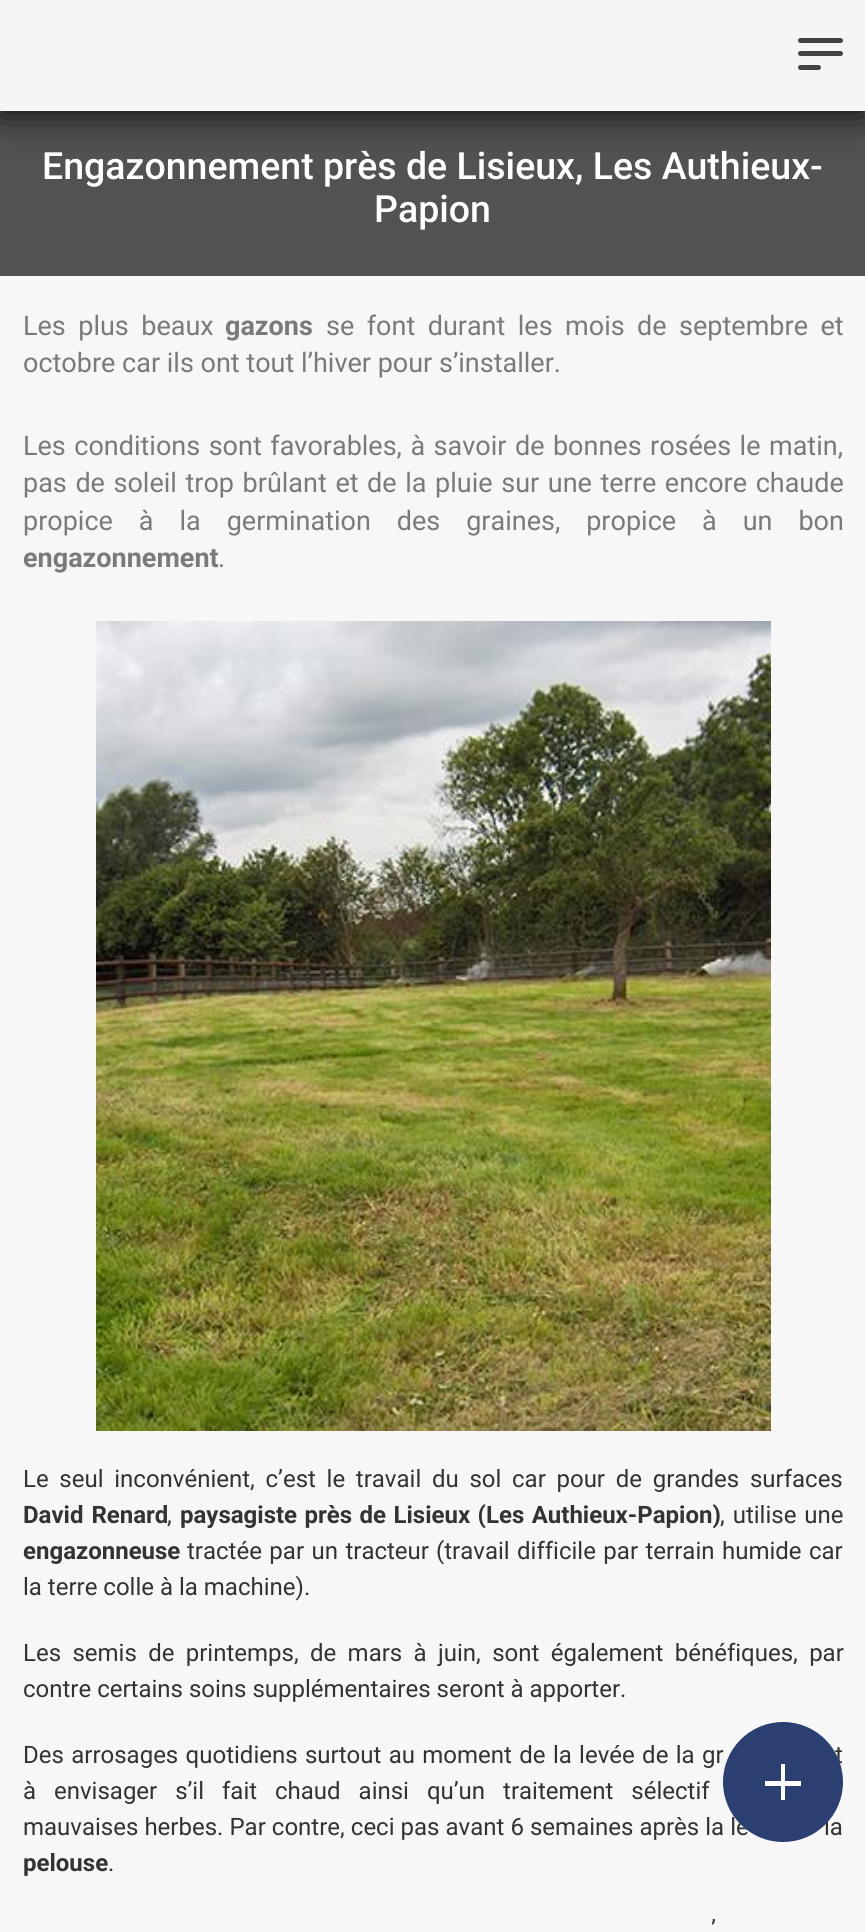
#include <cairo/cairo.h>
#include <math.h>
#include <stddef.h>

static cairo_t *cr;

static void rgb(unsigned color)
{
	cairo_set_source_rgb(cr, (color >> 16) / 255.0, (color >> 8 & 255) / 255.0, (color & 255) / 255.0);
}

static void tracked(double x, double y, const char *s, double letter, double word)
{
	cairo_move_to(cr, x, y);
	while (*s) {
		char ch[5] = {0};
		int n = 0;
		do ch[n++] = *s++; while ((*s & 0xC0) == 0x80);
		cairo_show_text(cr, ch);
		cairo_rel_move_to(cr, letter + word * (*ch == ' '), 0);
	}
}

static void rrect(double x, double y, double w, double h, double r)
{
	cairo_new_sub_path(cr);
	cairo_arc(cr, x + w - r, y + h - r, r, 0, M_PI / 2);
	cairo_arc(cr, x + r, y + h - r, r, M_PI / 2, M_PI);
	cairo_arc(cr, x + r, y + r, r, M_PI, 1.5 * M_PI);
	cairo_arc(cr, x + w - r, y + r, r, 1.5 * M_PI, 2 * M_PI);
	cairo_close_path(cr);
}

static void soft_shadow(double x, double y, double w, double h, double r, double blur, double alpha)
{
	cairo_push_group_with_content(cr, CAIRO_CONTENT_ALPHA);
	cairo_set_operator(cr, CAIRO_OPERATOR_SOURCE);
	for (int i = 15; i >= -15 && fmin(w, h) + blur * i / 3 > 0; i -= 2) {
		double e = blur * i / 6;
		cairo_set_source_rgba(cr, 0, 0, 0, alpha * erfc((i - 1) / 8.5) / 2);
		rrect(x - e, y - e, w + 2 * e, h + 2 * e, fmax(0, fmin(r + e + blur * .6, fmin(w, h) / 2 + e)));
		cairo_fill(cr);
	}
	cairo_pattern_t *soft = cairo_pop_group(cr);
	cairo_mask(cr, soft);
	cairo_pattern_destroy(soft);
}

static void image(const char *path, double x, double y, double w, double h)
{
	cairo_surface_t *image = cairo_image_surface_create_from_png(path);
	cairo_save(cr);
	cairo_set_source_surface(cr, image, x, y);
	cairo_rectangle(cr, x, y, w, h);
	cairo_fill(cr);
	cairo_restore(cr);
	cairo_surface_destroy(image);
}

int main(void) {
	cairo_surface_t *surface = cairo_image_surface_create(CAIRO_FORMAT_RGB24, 865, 1932);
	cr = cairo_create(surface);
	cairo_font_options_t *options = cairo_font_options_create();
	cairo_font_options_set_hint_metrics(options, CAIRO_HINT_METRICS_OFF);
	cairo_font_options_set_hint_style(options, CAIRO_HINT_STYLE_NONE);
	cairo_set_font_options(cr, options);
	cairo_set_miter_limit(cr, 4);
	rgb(0xf7f7f7);
	cairo_paint(cr);
	rgb(0x525252);
	cairo_rectangle(cr, 0, 111, 865, 165);
	cairo_fill(cr);
	rgb(0x000000);
	soft_shadow(0, 0, 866, 111, 0, 19, 1);
	rgb(0xf5f5f5);
	cairo_rectangle(cr, 0, 0, 865, 111);
	cairo_fill(cr);
	rgb(0x444242);
	rrect(798, 38, 45, 5, 2.5);
	cairo_fill(cr);
	rrect(798, 51, 45, 5, 2.5);
	cairo_fill(cr);
	rrect(798, 65, 23, 5, 2.5);
	cairo_fill(cr);
	image("img/1.png", 96, 621, 675, 810);
	cairo_select_font_face(cr, "Roboto Medium", CAIRO_FONT_SLANT_NORMAL, CAIRO_FONT_WEIGHT_NORMAL);
	cairo_set_font_size(cr, 37.5);
	rgb(0xffffff);
	cairo_move_to(cr, 42, 179);
	cairo_show_text(cr, "Engazonnement près de Lisieux, Les Authieux-");
	cairo_move_to(cr, 374, 222);
	cairo_show_text(cr, "Papion");
	cairo_select_font_face(cr, "Roboto", CAIRO_FONT_SLANT_NORMAL, CAIRO_FONT_WEIGHT_NORMAL);
	cairo_set_font_size(cr, 27);
	rgb(0x7a7a7a);
	tracked(23, 335, "Les plus beaux", 0, 5.75);
	cairo_select_font_face(cr, "Roboto", CAIRO_FONT_SLANT_NORMAL, CAIRO_FONT_WEIGHT_BOLD);
	cairo_move_to(cr, 225, 335);
	cairo_show_text(cr, "gazons");
	cairo_select_font_face(cr, "Roboto", CAIRO_FONT_SLANT_NORMAL, CAIRO_FONT_WEIGHT_NORMAL);
	tracked(326, 335, "se font durant les mois de septembre et", 0, 5.75);
	cairo_move_to(cr, 23, 372);
	cairo_show_text(cr, "octobre car ils ont tout l’hiver pour s’installer.");
	tracked(23, 455, "Les conditions sont favorables, à savoir de bonnes rosées le matin,", 0, 1.8);
	tracked(23, 492, "pas de soleil trop brûlant et de la pluie sur une terre encore chaude", 0, 1.9);
	tracked(23, 530, "propice à la germination des graines, propice à un bon", 0, 19.25);
	cairo_select_font_face(cr, "Roboto", CAIRO_FONT_SLANT_NORMAL, CAIRO_FONT_WEIGHT_BOLD);
	cairo_move_to(cr, 23, 567);
	cairo_show_text(cr, "engazonnement");
	cairo_select_font_face(cr, "Roboto", CAIRO_FONT_SLANT_NORMAL, CAIRO_FONT_WEIGHT_NORMAL);
	cairo_move_to(cr, 218, 567);
	cairo_show_text(cr, ".");
	cairo_set_font_size(cr, 24);
	rgb(0x333333);
	tracked(23, 1487, "Le seul inconvénient, c’est le travail du sol car pour de grandes surfaces", 0, 4.75);
	cairo_select_font_face(cr, "Roboto", CAIRO_FONT_SLANT_NORMAL, CAIRO_FONT_WEIGHT_BOLD);
	tracked(23, 1523, "David Renard", 0, 2);
	cairo_select_font_face(cr, "Roboto", CAIRO_FONT_SLANT_NORMAL, CAIRO_FONT_WEIGHT_NORMAL);
	cairo_move_to(cr, 167, 1523);
	cairo_show_text(cr, ",");
	cairo_select_font_face(cr, "Roboto", CAIRO_FONT_SLANT_NORMAL, CAIRO_FONT_WEIGHT_BOLD);
	tracked(180, 1523, "paysagiste près de Lisieux (Les Authieux-Papion)", 0, 1.5);
	cairo_select_font_face(cr, "Roboto", CAIRO_FONT_SLANT_NORMAL, CAIRO_FONT_WEIGHT_NORMAL);
	tracked(720, 1523, ", utilise une", 0, 2);
	cairo_select_font_face(cr, "Roboto", CAIRO_FONT_SLANT_NORMAL, CAIRO_FONT_WEIGHT_BOLD);
	cairo_move_to(cr, 23, 1559);
	cairo_show_text(cr, "engazonneuse");
	cairo_select_font_face(cr, "Roboto", CAIRO_FONT_SLANT_NORMAL, CAIRO_FONT_WEIGHT_NORMAL);
	tracked(187, 1559, "tractée par un tracteur", 0, 1.5);
	tracked(436, 1559, "(travail difficile par terrain humide car", 0, 1.5);
	cairo_move_to(cr, 23, 1595);
	cairo_show_text(cr, "la terre colle à la machine).");
	tracked(23, 1661, "Les semis de printemps, de mars à juin, sont également bénéfiques, par", 0, 5.4);
	cairo_move_to(cr, 23, 1697);
	cairo_show_text(cr, "contre certains soins supplémentaires seront à apporter.");
	tracked(23, 1763, "Des arrosages quotidiens surtout au moment de la levée de la gr", 0, 1.4);
	tracked(835, 1763, "t", 0, 1.4);
	tracked(23, 1799, "à envisager s’il fait chaud ainsi qu’un traitement sélectif", 0, 12);
	tracked(23, 1835, "mauvaises herbes. Par contre, ceci pas avant 6 semaines après la le", 0, 0.1);
	cairo_move_to(cr, 824, 1835);
	cairo_show_text(cr, "la");
	cairo_select_font_face(cr, "Roboto", CAIRO_FONT_SLANT_NORMAL, CAIRO_FONT_WEIGHT_BOLD);
	cairo_move_to(cr, 23, 1871);
	cairo_show_text(cr, "pelouse");
	cairo_select_font_face(cr, "Roboto", CAIRO_FONT_SLANT_NORMAL, CAIRO_FONT_WEIGHT_NORMAL);
	cairo_move_to(cr, 108, 1871);
	cairo_show_text(cr, ".");
	tracked(711, 1937, "’", 0, 9);
	rgb(0x2b4071);
	cairo_new_path(cr);
	cairo_arc(cr, 783, 1782, 60, 0, 2 * M_PI);
	cairo_fill(cr);
	rgb(0xffffff);
	cairo_rectangle(cr, 765, 1781, 36, 5);
	cairo_fill(cr);
	cairo_rectangle(cr, 781, 1764, 4, 36);
	cairo_fill(cr);
	cairo_surface_write_to_png(surface, "page.png");
	cairo_font_options_destroy(options);
	cairo_destroy(cr);
	cairo_surface_destroy(surface);
	return 0;
}
